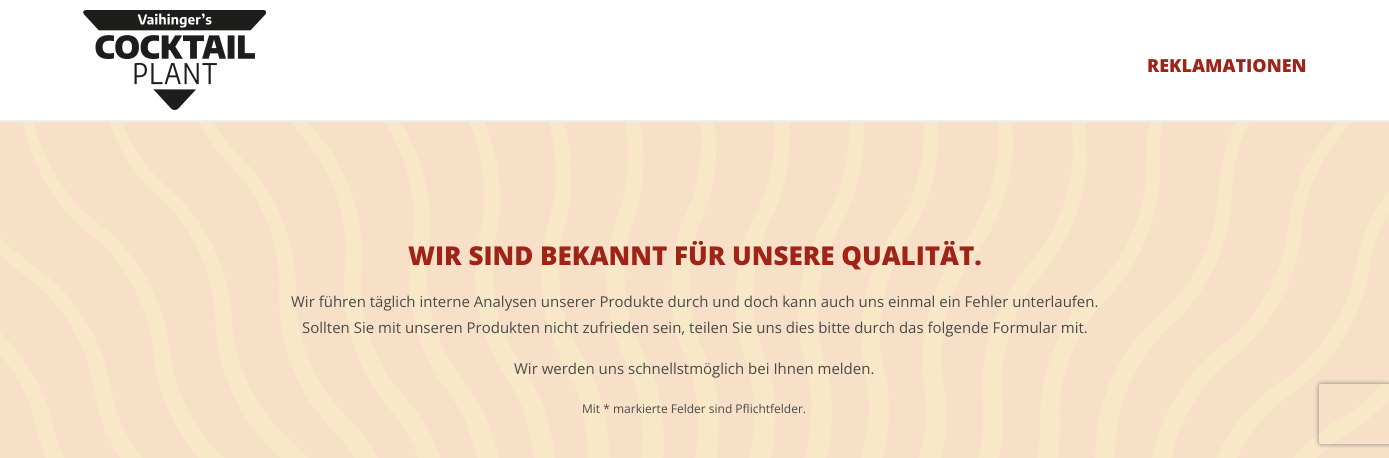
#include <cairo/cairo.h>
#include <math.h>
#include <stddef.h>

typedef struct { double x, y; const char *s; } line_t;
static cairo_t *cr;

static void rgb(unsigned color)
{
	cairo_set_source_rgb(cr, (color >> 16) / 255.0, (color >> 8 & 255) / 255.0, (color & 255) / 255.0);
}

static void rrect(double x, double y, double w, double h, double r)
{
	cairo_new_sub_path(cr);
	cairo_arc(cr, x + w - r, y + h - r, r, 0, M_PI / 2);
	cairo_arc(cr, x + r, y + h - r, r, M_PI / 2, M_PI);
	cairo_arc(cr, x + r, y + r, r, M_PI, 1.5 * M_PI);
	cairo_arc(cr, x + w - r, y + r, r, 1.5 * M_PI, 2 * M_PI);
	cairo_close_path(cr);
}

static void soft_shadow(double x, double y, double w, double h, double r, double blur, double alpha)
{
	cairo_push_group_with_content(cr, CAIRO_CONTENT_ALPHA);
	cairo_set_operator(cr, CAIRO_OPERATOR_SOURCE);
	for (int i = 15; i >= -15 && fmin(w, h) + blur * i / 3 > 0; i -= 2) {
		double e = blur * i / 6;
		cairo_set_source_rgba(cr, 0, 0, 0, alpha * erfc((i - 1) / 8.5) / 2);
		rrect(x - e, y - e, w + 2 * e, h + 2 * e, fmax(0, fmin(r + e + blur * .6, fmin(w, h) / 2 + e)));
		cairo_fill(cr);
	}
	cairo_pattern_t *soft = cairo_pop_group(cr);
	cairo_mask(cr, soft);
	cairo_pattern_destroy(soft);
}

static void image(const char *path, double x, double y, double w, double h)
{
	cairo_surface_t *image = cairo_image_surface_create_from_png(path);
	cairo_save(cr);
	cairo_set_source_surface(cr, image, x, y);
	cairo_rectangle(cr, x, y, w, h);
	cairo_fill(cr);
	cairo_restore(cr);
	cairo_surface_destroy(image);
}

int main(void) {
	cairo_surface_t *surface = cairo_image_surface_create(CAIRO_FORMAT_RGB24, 1389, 458);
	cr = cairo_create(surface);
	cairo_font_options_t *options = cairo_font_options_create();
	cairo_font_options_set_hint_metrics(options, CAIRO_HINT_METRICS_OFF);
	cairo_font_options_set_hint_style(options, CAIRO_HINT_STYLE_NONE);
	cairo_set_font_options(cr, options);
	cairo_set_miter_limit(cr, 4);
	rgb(0xffffff);
	cairo_paint(cr);
	image("img/1.png", 0, 122, 1389, 336);
	rgb(0xeeeeee);
	cairo_rectangle(cr, 0, 120, 1389, 2);
	cairo_fill(cr);
	image("img/2.png", 83, 10, 183, 100);
	cairo_set_source_rgba(cr, 0.973, 0.973, 0.973, 0.8);
	cairo_rectangle(cr, 0, 122, 1389, 336);
	cairo_fill(cr);
	cairo_save(cr);
	cairo_set_fill_rule(cr, CAIRO_FILL_RULE_EVEN_ODD);
	cairo_new_path(cr);
	cairo_move_to(cr, 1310, 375);
	cairo_line_to(cr, 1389, 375);
	cairo_line_to(cr, 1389, 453);
	cairo_line_to(cr, 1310, 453);
	cairo_close_path(cr);
	cairo_move_to(cr, 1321, 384);
	cairo_line_to(cr, 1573, 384);
	cairo_curve_to(cr, 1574, 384, 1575, 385, 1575, 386);
	cairo_line_to(cr, 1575, 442);
	cairo_curve_to(cr, 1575, 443, 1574, 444, 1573, 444);
	cairo_line_to(cr, 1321, 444);
	cairo_curve_to(cr, 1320, 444, 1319, 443, 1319, 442);
	cairo_line_to(cr, 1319, 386);
	cairo_curve_to(cr, 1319, 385, 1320, 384, 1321, 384);
	cairo_close_path(cr);
	cairo_clip(cr);
	rgb(0x808080);
	soft_shadow(1319, 384, 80, 60, 2, 2.5, 1);
	cairo_restore(cr);
	cairo_select_font_face(cr, "Open Sans ExtraBold", CAIRO_FONT_SLANT_NORMAL, CAIRO_FONT_WEIGHT_NORMAL);
	cairo_set_font_size(cr, 18);
	rgb(0x9f2317);
	cairo_move_to(cr, 1147, 72);
	cairo_show_text(cr, "REKLAMATIONEN");
	cairo_set_font_size(cr, 26);
	cairo_move_to(cr, 408, 265);
	cairo_show_text(cr, "WIR SIND BEKANNT FÜR UNSERE QUALITÄT.");
	cairo_select_font_face(cr, "Open Sans", CAIRO_FONT_SLANT_NORMAL, CAIRO_FONT_WEIGHT_NORMAL);
	cairo_set_font_size(cr, 15);
	rgb(0x4a4a4a);
	{
		static const line_t items[] = {
			{291, 307, "Wir führen täglich interne Analysen unserer Produkte durch und doch kann auch uns einmal ein Fehler unterlaufen."},
			{302, 333, "Sollten Sie mit unseren Produkten nicht zufrieden sein, teilen Sie uns dies bitte durch das folgende Formular mit."},
			{514, 374, "Wir werden uns schnellstmöglich bei Ihnen melden."},
		};
		for (size_t i = 0; i < sizeof items / sizeof *items; i++) {
			cairo_move_to(cr, items[i].x, items[i].y);
			cairo_show_text(cr, items[i].s);
		}
	}
	cairo_set_font_size(cr, 12);
	cairo_move_to(cr, 582, 413);
	cairo_show_text(cr, "Mit * markierte Felder sind Pflichtfelder.");
	cairo_surface_write_to_png(surface, "page.png");
	cairo_font_options_destroy(options);
	cairo_destroy(cr);
	cairo_surface_destroy(surface);
	return 0;
}
